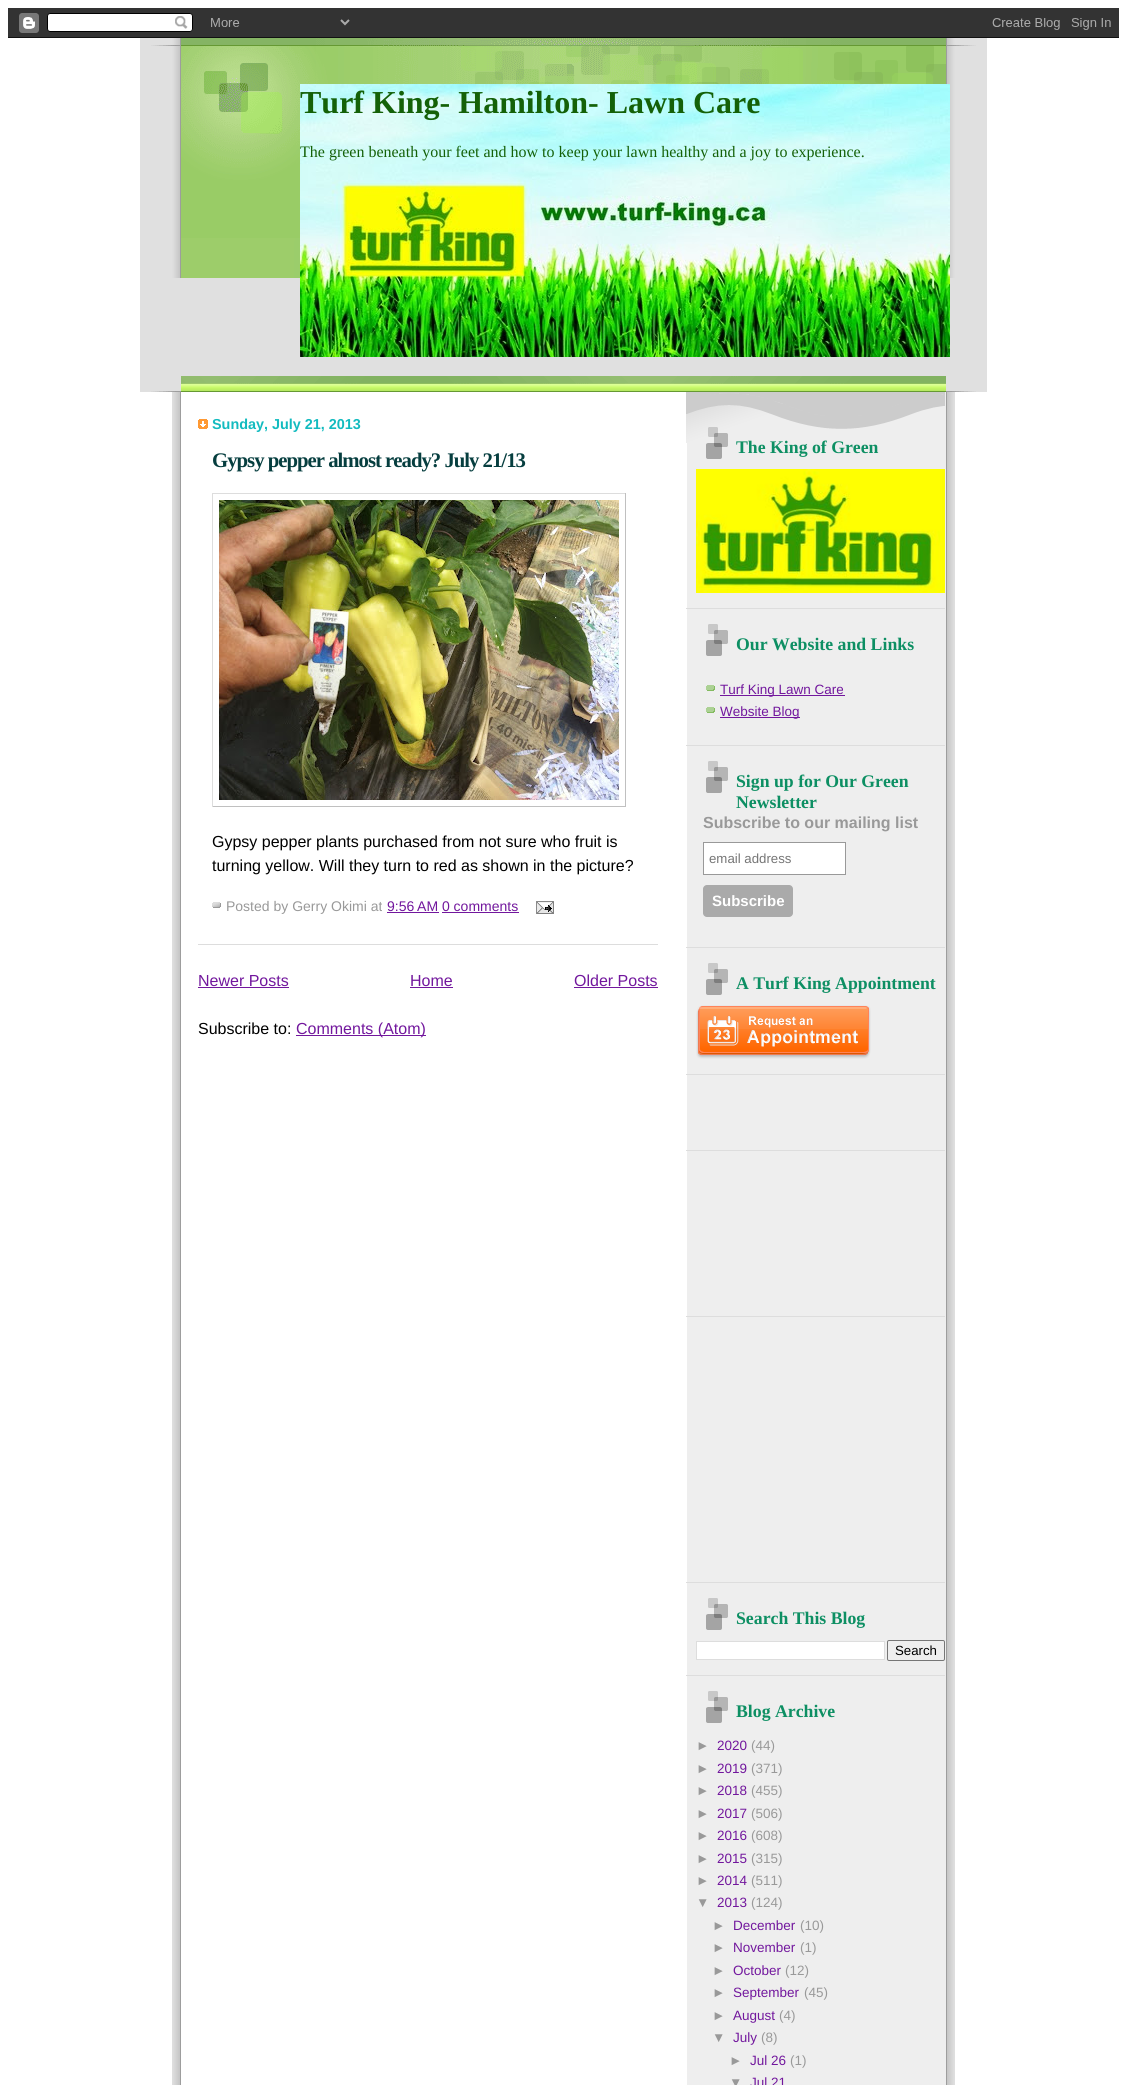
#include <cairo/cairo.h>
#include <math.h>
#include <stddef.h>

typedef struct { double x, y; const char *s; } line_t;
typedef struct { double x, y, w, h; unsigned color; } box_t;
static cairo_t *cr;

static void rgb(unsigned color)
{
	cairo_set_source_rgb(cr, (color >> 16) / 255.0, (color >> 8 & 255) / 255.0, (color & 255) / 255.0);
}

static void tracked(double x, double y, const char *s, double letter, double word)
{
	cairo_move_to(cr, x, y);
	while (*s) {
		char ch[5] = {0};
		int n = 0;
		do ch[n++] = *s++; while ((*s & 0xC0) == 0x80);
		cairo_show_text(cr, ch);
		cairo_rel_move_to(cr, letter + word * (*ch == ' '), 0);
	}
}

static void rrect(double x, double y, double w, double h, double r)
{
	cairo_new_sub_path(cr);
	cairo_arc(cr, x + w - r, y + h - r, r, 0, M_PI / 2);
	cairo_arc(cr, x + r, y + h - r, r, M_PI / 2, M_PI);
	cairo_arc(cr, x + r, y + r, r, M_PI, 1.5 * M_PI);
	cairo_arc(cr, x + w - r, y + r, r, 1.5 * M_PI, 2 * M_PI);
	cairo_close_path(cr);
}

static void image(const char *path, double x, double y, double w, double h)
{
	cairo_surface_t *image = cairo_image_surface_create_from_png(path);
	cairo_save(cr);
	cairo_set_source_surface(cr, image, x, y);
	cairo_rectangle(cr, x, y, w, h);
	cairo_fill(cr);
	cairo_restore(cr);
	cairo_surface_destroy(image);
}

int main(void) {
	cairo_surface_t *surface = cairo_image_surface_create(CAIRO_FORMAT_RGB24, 1127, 2085);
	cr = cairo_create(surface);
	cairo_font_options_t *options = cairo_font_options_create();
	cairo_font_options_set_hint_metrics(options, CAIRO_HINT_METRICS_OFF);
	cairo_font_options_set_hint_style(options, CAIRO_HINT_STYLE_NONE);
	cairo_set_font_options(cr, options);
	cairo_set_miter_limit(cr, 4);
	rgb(0xffffff);
	cairo_paint(cr);
	image("img/1.png", 8, 8, 1111, 30);
	image("img/2.png", 172, 392, 783, 1693);
	rgb(0xe0e0e0);
	cairo_rectangle(cr, 140, 38, 847, 354);
	cairo_fill(cr);
	image("img/3.png", 151, 38, 825, 240);
	image("img/4.png", 151, 376, 825, 16);
	image("img/5.png", 300, 84, 650, 273);
	image("img/6.png", 198, 419, 10, 10);
	{
		static const box_t items[] = {
			{198, 944, 460, 1, 0xdddddd},
			{212, 493, 414, 1, 0xdddddd},
			{625, 493, 1, 314, 0xc0c0c0},
			{212, 806, 414, 1, 0xc0c0c0},
			{212, 493, 1, 314, 0xdddddd},
		};
		for (size_t i = 0; i < sizeof items / sizeof *items; i++) {
			rgb(items[i].color);
			cairo_rectangle(cr, items[i].x, items[i].y, items[i].w, items[i].h);
			cairo_fill(cr);
		}
	}
	image("img/7.png", 219, 500, 400, 300);
	image("img/8.png", 212, 902, 9, 6);
	rgb(0x72179d);
	cairo_rectangle(cr, 387, 912, 52, 1);
	cairo_fill(cr);
	image("img/9.png", 536, 901, 18, 13);
	{
		static const box_t items[] = {
			{442, 912, 77, 1, 0x72179d},
			{198, 987, 91, 1, 0x72179d},
			{410, 987, 43, 1, 0x72179d},
			{574, 987, 84, 1, 0x72179d},
			{296, 1035, 130, 1, 0x72179d},
		};
		for (size_t i = 0; i < sizeof items / sizeof *items; i++) {
			rgb(items[i].color);
			cairo_rectangle(cr, items[i].x, items[i].y, items[i].w, items[i].h);
			cairo_fill(cr);
		}
	}
	image("img/10.png", 686, 392, 259, 51);
	rgb(0xdddddd);
	cairo_rectangle(cr, 686, 608, 259, 1);
	cairo_fill(cr);
	image("img/11.png", 706, 427, 22, 32);
	image("img/12.png", 696, 469, 249, 124);
	cairo_rectangle(cr, 686, 745, 259, 1);
	cairo_fill(cr);
	image("img/13.png", 706, 624, 22, 32);
	image("img/14.png", 706, 685, 9, 6);
	rgb(0x72179d);
	cairo_rectangle(cr, 720, 695, 125, 1);
	cairo_fill(cr);
	image("img/14.png", 706, 707, 9, 6);
	cairo_rectangle(cr, 720, 717, 80, 1);
	cairo_fill(cr);
	rgb(0xdddddd);
	cairo_rectangle(cr, 686, 947, 259, 1);
	cairo_fill(cr);
	image("img/13.png", 706, 761, 22, 32);
	rgb(0xffffff);
	cairo_rectangle(cr, 703.5, 842.5, 142, 32);
	cairo_fill_preserve(cr);
	rgb(0x999999);
	cairo_set_line_width(cr, 1);
	cairo_stroke(cr);
	rgb(0xaaaaaa);
	rrect(703, 885, 90, 32, 4);
	cairo_fill(cr);
	rgb(0xdddddd);
	cairo_rectangle(cr, 686, 1074, 259, 1);
	cairo_fill(cr);
	image("img/13.png", 706, 963, 22, 32);
	image("img/15.png", 696, 1005, 175, 54);
	{
		static const box_t items[] = {
			{686, 1150, 259, 1, 0xdddddd},
			{686, 1316, 259, 1, 0xdddddd},
			{686, 1582, 259, 1, 0xdddddd},
			{686, 1675, 259, 1, 0xdddddd},
		};
		for (size_t i = 0; i < sizeof items / sizeof *items; i++) {
			rgb(items[i].color);
			cairo_rectangle(cr, items[i].x, items[i].y, items[i].w, items[i].h);
			cairo_fill(cr);
		}
	}
	image("img/13.png", 706, 1598, 22, 32);
	rgb(0xffffff);
	cairo_rectangle(cr, 696.5, 1641.5, 188, 18);
	cairo_fill_preserve(cr);
	rgb(0xdddddd);
	cairo_stroke(cr);
	rrect(887.5, 1640.5, 57, 20, 1.5);
	rgb(0x767676);
	cairo_stroke(cr);
	image("img/13.png", 706, 1691, 22, 32);
	cairo_select_font_face(cr, "Liberation Serif", CAIRO_FONT_SLANT_NORMAL, CAIRO_FONT_WEIGHT_BOLD);
	cairo_set_font_size(cr, 32);
	rgb(0x146108);
	cairo_move_to(cr, 300, 113);
	cairo_show_text(cr, "Turf King- Hamilton- Lawn Care");
	cairo_select_font_face(cr, "Liberation Serif", CAIRO_FONT_SLANT_NORMAL, CAIRO_FONT_WEIGHT_NORMAL);
	cairo_set_font_size(cr, 16);
	cairo_move_to(cr, 300, 157);
	cairo_show_text(cr, "The green beneath your feet and how to keep your lawn healthy and a joy to experience.");
	cairo_select_font_face(cr, "Liberation Sans", CAIRO_FONT_SLANT_NORMAL, CAIRO_FONT_WEIGHT_BOLD);
	cairo_set_font_size(cr, 14.4);
	rgb(0x12bbbf);
	cairo_move_to(cr, 212, 429);
	cairo_show_text(cr, "Sunday, July 21, 2013");
	cairo_select_font_face(cr, "Liberation Serif", CAIRO_FONT_SLANT_NORMAL, CAIRO_FONT_WEIGHT_BOLD);
	cairo_set_font_size(cr, 20.75);
	rgb(0x063e3f);
	tracked(212, 467, "Gypsy pepper almost ready? July 21/13", -1, 0);
	cairo_select_font_face(cr, "Liberation Sans", CAIRO_FONT_SLANT_NORMAL, CAIRO_FONT_WEIGHT_NORMAL);
	cairo_set_font_size(cr, 16);
	rgb(0x000000);
	cairo_move_to(cr, 212, 847);
	cairo_show_text(cr, "Gypsy pepper plants purchased from not sure who fruit is");
	cairo_move_to(cr, 212, 871);
	cairo_show_text(cr, "turning yellow. Will they turn to red as shown in the picture?");
	cairo_set_font_size(cr, 14);
	rgb(0x999999);
	cairo_move_to(cr, 226, 911);
	cairo_show_text(cr, "Posted by Gerry Okimi at");
	rgb(0x72179d);
	cairo_move_to(cr, 387, 911);
	cairo_show_text(cr, "9:56 AM 0 comments");
	cairo_set_font_size(cr, 16);
	{
		static const line_t items[] = {
			{198, 986, "Newer Posts"},
			{410, 986, "Home"},
			{574, 986, "Older Posts"},
		};
		for (size_t i = 0; i < sizeof items / sizeof *items; i++) {
			cairo_move_to(cr, items[i].x, items[i].y);
			cairo_show_text(cr, items[i].s);
		}
	}
	rgb(0x000000);
	cairo_move_to(cr, 198, 1034);
	cairo_show_text(cr, "Subscribe to:");
	rgb(0x72179d);
	cairo_move_to(cr, 296, 1034);
	cairo_show_text(cr, "Comments (Atom)");
	cairo_select_font_face(cr, "Liberation Serif", CAIRO_FONT_SLANT_NORMAL, CAIRO_FONT_WEIGHT_BOLD);
	cairo_set_font_size(cr, 17.75);
	rgb(0x0d8f63);
	cairo_move_to(cr, 736, 453);
	cairo_show_text(cr, "The King of Green");
	cairo_move_to(cr, 736, 650);
	cairo_show_text(cr, "Our Website and Links");
	cairo_select_font_face(cr, "Liberation Sans", CAIRO_FONT_SLANT_NORMAL, CAIRO_FONT_WEIGHT_NORMAL);
	cairo_set_font_size(cr, 13.5);
	rgb(0x72179d);
	cairo_move_to(cr, 720, 694);
	cairo_show_text(cr, "Turf King Lawn Care");
	cairo_move_to(cr, 720, 716);
	cairo_show_text(cr, "Website Blog");
	cairo_select_font_face(cr, "Liberation Serif", CAIRO_FONT_SLANT_NORMAL, CAIRO_FONT_WEIGHT_BOLD);
	cairo_set_font_size(cr, 17.75);
	rgb(0x0d8f63);
	cairo_move_to(cr, 736, 787);
	cairo_show_text(cr, "Sign up for Our Green");
	cairo_move_to(cr, 736, 808);
	cairo_show_text(cr, "Newsletter");
	cairo_select_font_face(cr, "Liberation Sans", CAIRO_FONT_SLANT_NORMAL, CAIRO_FONT_WEIGHT_BOLD);
	cairo_set_font_size(cr, 16);
	rgb(0x999999);
	cairo_move_to(cr, 703, 828);
	cairo_show_text(cr, "Subscribe to our mailing list");
	cairo_select_font_face(cr, "Liberation Sans", CAIRO_FONT_SLANT_NORMAL, CAIRO_FONT_WEIGHT_NORMAL);
	cairo_set_font_size(cr, 13.25);
	rgb(0x757575);
	cairo_move_to(cr, 709, 863);
	cairo_show_text(cr, "email address");
	cairo_select_font_face(cr, "Liberation Sans", CAIRO_FONT_SLANT_NORMAL, CAIRO_FONT_WEIGHT_BOLD);
	cairo_set_font_size(cr, 15);
	rgb(0xffffff);
	cairo_move_to(cr, 712, 906);
	cairo_show_text(cr, "Subscribe");
	cairo_select_font_face(cr, "Liberation Serif", CAIRO_FONT_SLANT_NORMAL, CAIRO_FONT_WEIGHT_BOLD);
	cairo_set_font_size(cr, 17.75);
	rgb(0x0d8f63);
	cairo_move_to(cr, 736, 989);
	cairo_show_text(cr, "A Turf King Appointment");
	cairo_move_to(cr, 736, 1624);
	cairo_show_text(cr, "Search This Blog");
	cairo_select_font_face(cr, "Liberation Sans", CAIRO_FONT_SLANT_NORMAL, CAIRO_FONT_WEIGHT_NORMAL);
	cairo_set_font_size(cr, 13.25);
	rgb(0x000000);
	cairo_move_to(cr, 895, 1655);
	cairo_show_text(cr, "Search");
	cairo_select_font_face(cr, "Liberation Serif", CAIRO_FONT_SLANT_NORMAL, CAIRO_FONT_WEIGHT_BOLD);
	cairo_set_font_size(cr, 17.75);
	rgb(0x0d8f63);
	cairo_move_to(cr, 736, 1717);
	cairo_show_text(cr, "Blog Archive");
	cairo_select_font_face(cr, "Liberation Sans", CAIRO_FONT_SLANT_NORMAL, CAIRO_FONT_WEIGHT_NORMAL);
	cairo_set_font_size(cr, 13.5);
	rgb(0x999999);
	cairo_move_to(cr, 696, 1750);
	cairo_show_text(cr, "►");
	rgb(0x72179d);
	cairo_move_to(cr, 717, 1750);
	cairo_show_text(cr, "2020");
	rgb(0x999999);
	cairo_move_to(cr, 751, 1750);
	cairo_show_text(cr, "(44)");
	cairo_move_to(cr, 696, 1773);
	cairo_show_text(cr, "►");
	rgb(0x72179d);
	cairo_move_to(cr, 717, 1773);
	cairo_show_text(cr, "2019");
	rgb(0x999999);
	cairo_move_to(cr, 751, 1773);
	cairo_show_text(cr, "(371)");
	cairo_move_to(cr, 696, 1795);
	cairo_show_text(cr, "►");
	rgb(0x72179d);
	cairo_move_to(cr, 717, 1795);
	cairo_show_text(cr, "2018");
	rgb(0x999999);
	cairo_move_to(cr, 751, 1795);
	cairo_show_text(cr, "(455)");
	cairo_move_to(cr, 696, 1818);
	cairo_show_text(cr, "►");
	rgb(0x72179d);
	cairo_move_to(cr, 717, 1818);
	cairo_show_text(cr, "2017");
	rgb(0x999999);
	cairo_move_to(cr, 751, 1818);
	cairo_show_text(cr, "(506)");
	cairo_move_to(cr, 696, 1840);
	cairo_show_text(cr, "►");
	rgb(0x72179d);
	cairo_move_to(cr, 717, 1840);
	cairo_show_text(cr, "2016");
	rgb(0x999999);
	cairo_move_to(cr, 751, 1840);
	cairo_show_text(cr, "(608)");
	cairo_move_to(cr, 696, 1863);
	cairo_show_text(cr, "►");
	rgb(0x72179d);
	cairo_move_to(cr, 717, 1863);
	cairo_show_text(cr, "2015");
	rgb(0x999999);
	cairo_move_to(cr, 751, 1863);
	cairo_show_text(cr, "(315)");
	cairo_move_to(cr, 696, 1885);
	cairo_show_text(cr, "►");
	rgb(0x72179d);
	cairo_move_to(cr, 717, 1885);
	cairo_show_text(cr, "2014");
	rgb(0x999999);
	cairo_move_to(cr, 751, 1885);
	cairo_show_text(cr, "(511)");
	cairo_move_to(cr, 696, 1907);
	cairo_show_text(cr, "▼");
	rgb(0x72179d);
	cairo_move_to(cr, 717, 1907);
	cairo_show_text(cr, "2013");
	rgb(0x999999);
	cairo_move_to(cr, 751, 1907);
	cairo_show_text(cr, "(124)");
	cairo_move_to(cr, 712, 1930);
	cairo_show_text(cr, "►");
	rgb(0x72179d);
	cairo_move_to(cr, 733, 1930);
	cairo_show_text(cr, "December");
	rgb(0x999999);
	cairo_move_to(cr, 800, 1930);
	cairo_show_text(cr, "(10)");
	cairo_move_to(cr, 712, 1952);
	cairo_show_text(cr, "►");
	rgb(0x72179d);
	cairo_move_to(cr, 733, 1952);
	cairo_show_text(cr, "November");
	rgb(0x999999);
	cairo_move_to(cr, 800, 1952);
	cairo_show_text(cr, "(1)");
	cairo_move_to(cr, 712, 1975);
	cairo_show_text(cr, "►");
	rgb(0x72179d);
	cairo_move_to(cr, 733, 1975);
	cairo_show_text(cr, "October");
	rgb(0x999999);
	cairo_move_to(cr, 785, 1975);
	cairo_show_text(cr, "(12)");
	cairo_move_to(cr, 712, 1997);
	cairo_show_text(cr, "►");
	rgb(0x72179d);
	cairo_move_to(cr, 733, 1997);
	cairo_show_text(cr, "September");
	rgb(0x999999);
	cairo_move_to(cr, 804, 1997);
	cairo_show_text(cr, "(45)");
	cairo_move_to(cr, 712, 2020);
	cairo_show_text(cr, "►");
	rgb(0x72179d);
	cairo_move_to(cr, 733, 2020);
	cairo_show_text(cr, "August");
	rgb(0x999999);
	cairo_move_to(cr, 779, 2020);
	cairo_show_text(cr, "(4)");
	cairo_move_to(cr, 712, 2042);
	cairo_show_text(cr, "▼");
	rgb(0x72179d);
	cairo_move_to(cr, 733, 2042);
	cairo_show_text(cr, "July");
	rgb(0x999999);
	cairo_move_to(cr, 761, 2042);
	cairo_show_text(cr, "(8)");
	cairo_move_to(cr, 729, 2065);
	cairo_show_text(cr, "►");
	rgb(0x72179d);
	cairo_move_to(cr, 750, 2065);
	cairo_show_text(cr, "Jul 26");
	rgb(0x999999);
	cairo_move_to(cr, 790, 2065);
	cairo_show_text(cr, "(1)");
	cairo_move_to(cr, 729, 2087);
	cairo_show_text(cr, "▼");
	rgb(0x72179d);
	cairo_move_to(cr, 750, 2087);
	cairo_show_text(cr, "Jul 21");
	cairo_surface_write_to_png(surface, "page.png");
	cairo_font_options_destroy(options);
	cairo_destroy(cr);
	cairo_surface_destroy(surface);
	return 0;
}
